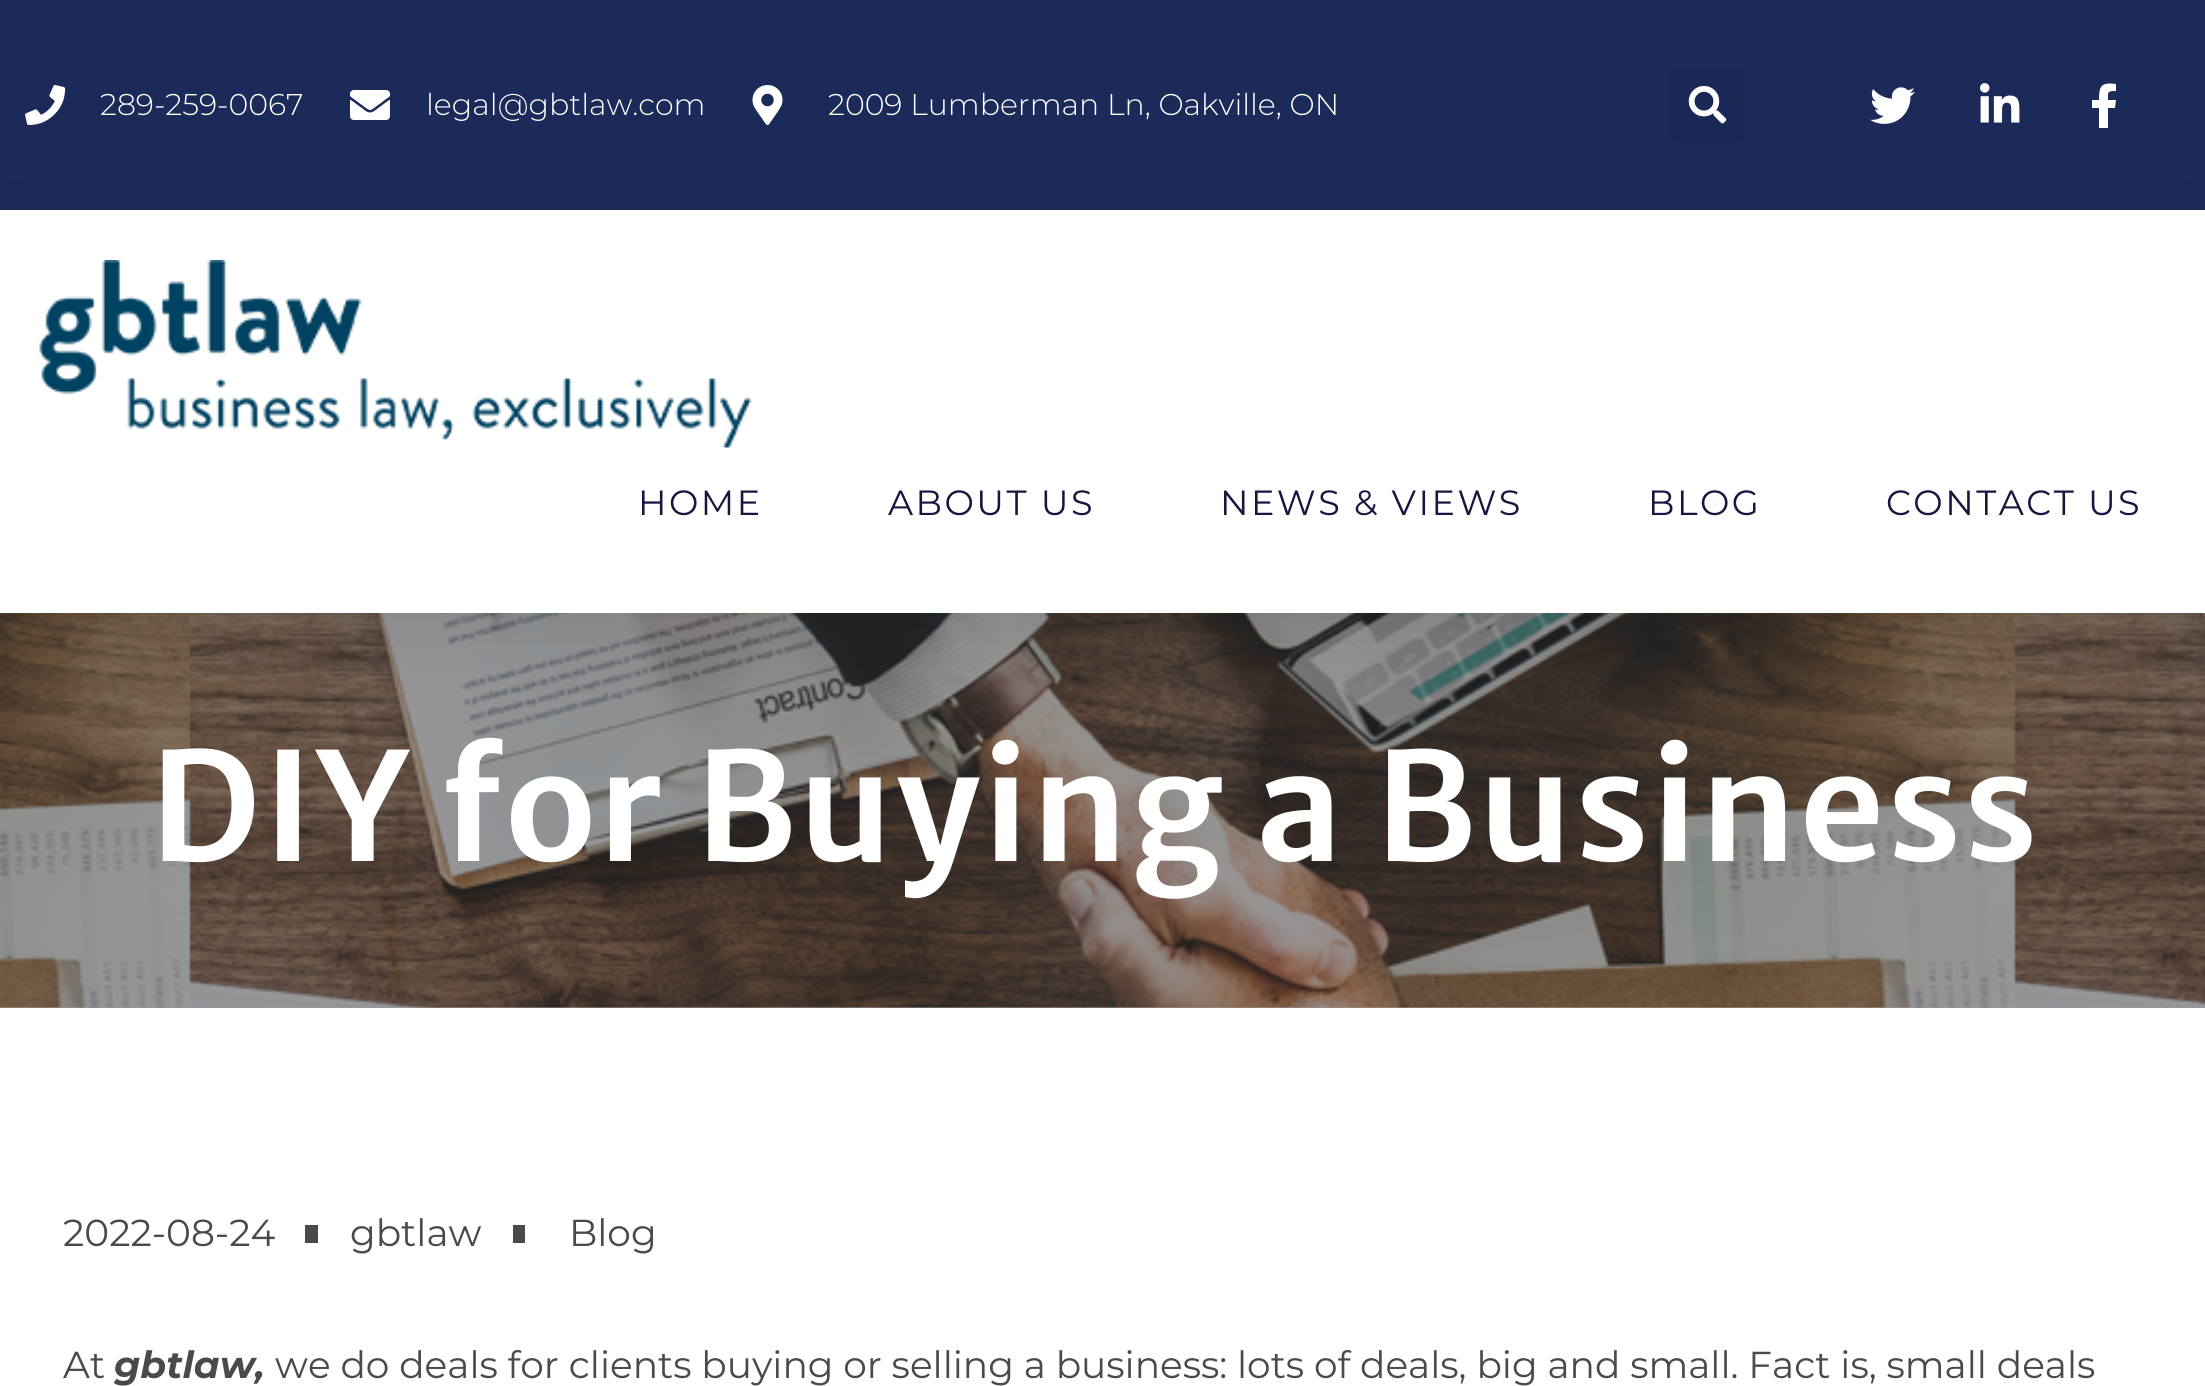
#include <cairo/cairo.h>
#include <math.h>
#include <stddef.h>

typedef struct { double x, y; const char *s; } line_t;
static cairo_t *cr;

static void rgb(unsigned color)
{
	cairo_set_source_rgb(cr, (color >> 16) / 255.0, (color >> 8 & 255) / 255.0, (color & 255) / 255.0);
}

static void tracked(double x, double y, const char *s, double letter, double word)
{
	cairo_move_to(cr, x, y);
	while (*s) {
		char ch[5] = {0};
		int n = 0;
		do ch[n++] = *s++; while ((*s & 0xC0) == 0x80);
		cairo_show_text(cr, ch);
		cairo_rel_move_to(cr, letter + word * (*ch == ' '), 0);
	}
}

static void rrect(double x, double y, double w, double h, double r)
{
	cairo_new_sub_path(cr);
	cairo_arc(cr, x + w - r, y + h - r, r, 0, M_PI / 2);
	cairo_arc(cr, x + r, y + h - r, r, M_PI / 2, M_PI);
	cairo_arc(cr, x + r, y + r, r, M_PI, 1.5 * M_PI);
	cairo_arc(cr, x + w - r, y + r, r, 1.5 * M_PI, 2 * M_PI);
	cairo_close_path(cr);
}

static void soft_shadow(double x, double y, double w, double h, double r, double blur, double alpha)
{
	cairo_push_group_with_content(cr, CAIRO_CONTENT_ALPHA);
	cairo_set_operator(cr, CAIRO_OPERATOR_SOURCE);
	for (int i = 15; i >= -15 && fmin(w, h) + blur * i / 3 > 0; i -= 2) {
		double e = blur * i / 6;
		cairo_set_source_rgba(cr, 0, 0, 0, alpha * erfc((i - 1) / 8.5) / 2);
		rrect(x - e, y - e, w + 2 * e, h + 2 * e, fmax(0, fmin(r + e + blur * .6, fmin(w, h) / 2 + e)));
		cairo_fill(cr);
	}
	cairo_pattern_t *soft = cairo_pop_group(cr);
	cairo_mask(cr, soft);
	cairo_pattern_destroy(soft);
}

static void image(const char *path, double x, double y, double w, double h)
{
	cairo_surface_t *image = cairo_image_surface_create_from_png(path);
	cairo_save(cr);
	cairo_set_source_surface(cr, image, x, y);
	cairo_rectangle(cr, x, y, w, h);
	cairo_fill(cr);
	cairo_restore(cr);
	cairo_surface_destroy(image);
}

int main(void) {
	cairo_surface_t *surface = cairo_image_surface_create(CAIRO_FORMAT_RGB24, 2205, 1386);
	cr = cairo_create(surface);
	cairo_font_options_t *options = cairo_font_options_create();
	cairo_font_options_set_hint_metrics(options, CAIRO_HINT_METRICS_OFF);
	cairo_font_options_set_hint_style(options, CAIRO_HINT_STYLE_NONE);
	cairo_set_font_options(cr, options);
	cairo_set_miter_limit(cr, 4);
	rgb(0xffffff);
	cairo_paint(cr);
	rgb(0x9d9d9d);
	cairo_rectangle(cr, 0, 1007, 2205, 1);
	cairo_fill(cr);
	rgb(0x1b2a59);
	cairo_rectangle(cr, 0, 0, 2205, 210);
	cairo_fill(cr);
	image("img/1.png", 25, 85, 41, 40);
	image("img/2.png", 350, 90, 40, 30);
	image("img/3.png", 752, 85, 31, 40);
	rgb(0x1a2855);
	rrect(1670, 68, 75, 75, 8);
	cairo_fill(cr);
	image("img/4.png", 1688, 85, 39, 39);
	image("img/5.png", 1870, 87, 45, 37);
	image("img/6.png", 1980, 83, 40, 40);
	rgb(0xffffff);
	cairo_new_path(cr);
	cairo_move_to(cr, 2115, 108);
	cairo_line_to(cr, 2108, 108);
	cairo_line_to(cr, 2108, 128);
	cairo_line_to(cr, 2099, 128);
	cairo_line_to(cr, 2099, 108);
	cairo_line_to(cr, 2092, 108);
	cairo_line_to(cr, 2092, 100);
	cairo_line_to(cr, 2099, 100);
	cairo_curve_to(cr, 2099, 86, 2101, 82, 2116, 84);
	cairo_line_to(cr, 2116, 91);
	cairo_curve_to(cr, 2107, 91, 2108, 92, 2108, 100);
	cairo_line_to(cr, 2116, 100);
	cairo_close_path(cr);
	cairo_fill(cr);
	image("img/8.png", 0, 613, 2205, 395);
	rgb(0x000000);
	soft_shadow(0, 223, 2205, 402, 0, 37.5, 0.1);
	rgb(0xffffff);
	cairo_rectangle(cr, 0, 210, 2205, 403);
	cairo_fill(cr);
	image("img/7.png", 39, 260, 713, 188);
	rgb(0x4a4a4a);
	cairo_rectangle(cr, 305, 1225, 13, 18);
	cairo_fill(cr);
	cairo_rectangle(cr, 513, 1225, 12, 18);
	cairo_fill(cr);
	cairo_select_font_face(cr, "Montserrat Light", CAIRO_FONT_SLANT_NORMAL, CAIRO_FONT_WEIGHT_NORMAL);
	cairo_set_font_size(cr, 30);
	rgb(0xffffff);
	{
		static const line_t items[] = {
			{100, 115, "289-259-0067"},
			{426, 115, "legal@gbtlaw.com"},
			{828, 115, "2009 Lumberman Ln, Oakville, ON"},
		};
		for (size_t i = 0; i < sizeof items / sizeof *items; i++) {
			cairo_move_to(cr, items[i].x, items[i].y);
			cairo_show_text(cr, items[i].s);
		}
	}
	cairo_select_font_face(cr, "Montserrat", CAIRO_FONT_SLANT_NORMAL, CAIRO_FONT_WEIGHT_NORMAL);
	cairo_set_font_size(cr, 35);
	rgb(0x16163f);
	{
		static const line_t items[] = {
			{638, 515, "HOME"},
			{888, 515, "ABOUT US"},
			{1220, 515, "NEWS & VIEWS"},
			{1648, 515, "BLOG"},
			{1886, 515, "CONTACT US"},
		};
		for (size_t i = 0; i < sizeof items / sizeof *items; i++) {
			tracked(items[i].x, items[i].y, items[i].s, 2.5, 0);
		}
	}
	cairo_select_font_face(cr, "Merriweather Sans SemiBold", CAIRO_FONT_SLANT_NORMAL, CAIRO_FONT_WEIGHT_NORMAL);
	cairo_set_font_size(cr, 150);
	rgb(0xffffff);
	tracked(150, 861, "DIY for Buying a Business", 2.5, 0);
	cairo_select_font_face(cr, "Montserrat", CAIRO_FONT_SLANT_NORMAL, CAIRO_FONT_WEIGHT_NORMAL);
	cairo_set_font_size(cr, 37.5);
	rgb(0x4a4a4a);
	{
		static const line_t items[] = {
			{63, 1246, "2022-08-24"},
			{350, 1246, "gbtlaw"},
			{569, 1246, "Blog"},
			{63, 1378, "At"},
		};
		for (size_t i = 0; i < sizeof items / sizeof *items; i++) {
			cairo_move_to(cr, items[i].x, items[i].y);
			cairo_show_text(cr, items[i].s);
		}
	}
	cairo_select_font_face(cr, "Montserrat", CAIRO_FONT_SLANT_ITALIC, CAIRO_FONT_WEIGHT_BOLD);
	cairo_move_to(cr, 114, 1378);
	cairo_show_text(cr, "gbtlaw,");
	cairo_select_font_face(cr, "Montserrat", CAIRO_FONT_SLANT_NORMAL, CAIRO_FONT_WEIGHT_NORMAL);
	cairo_move_to(cr, 275, 1378);
	cairo_show_text(cr, "we do deals for clients buying or selling a business: lots of deals, big and small. Fact is, small deals");
	cairo_surface_write_to_png(surface, "page.png");
	cairo_font_options_destroy(options);
	cairo_destroy(cr);
	cairo_surface_destroy(surface);
	return 0;
}
